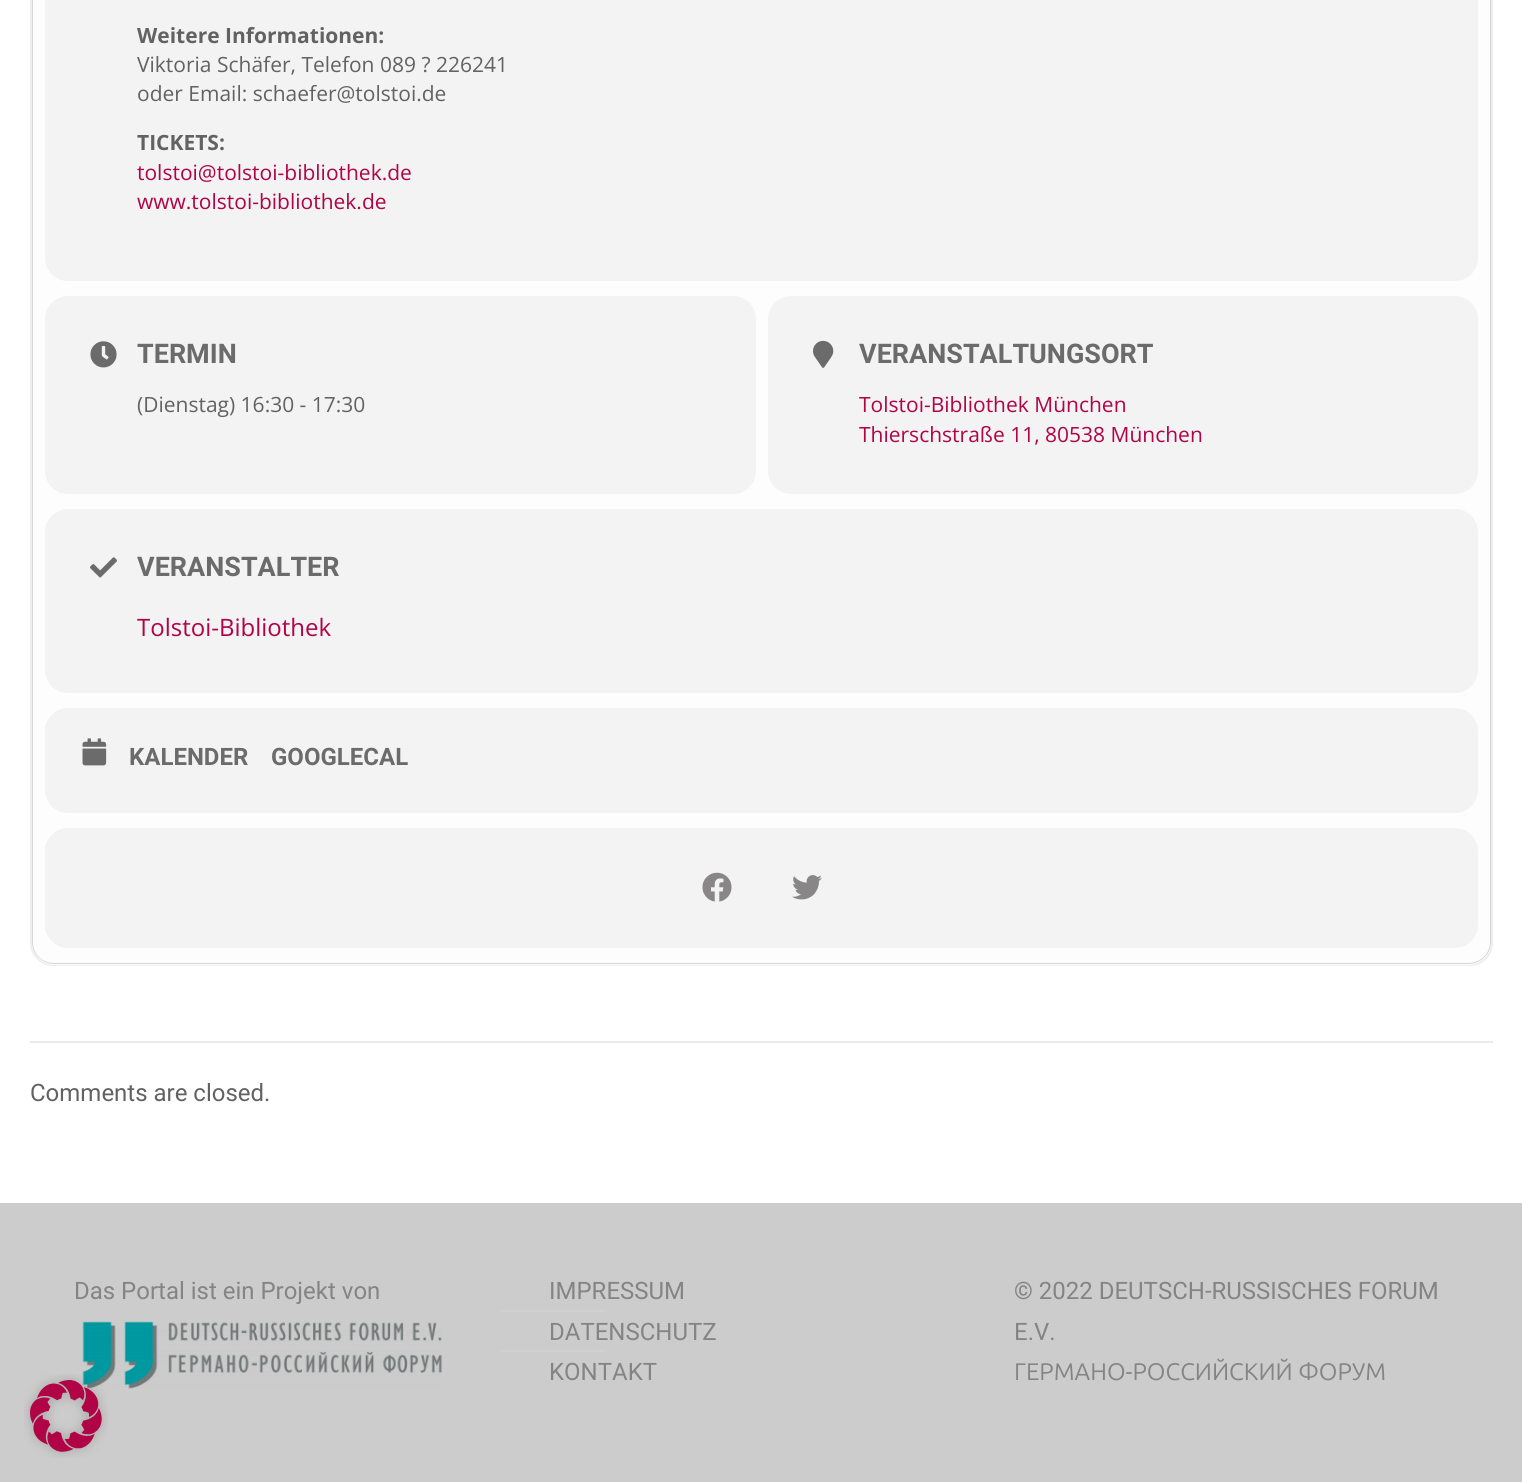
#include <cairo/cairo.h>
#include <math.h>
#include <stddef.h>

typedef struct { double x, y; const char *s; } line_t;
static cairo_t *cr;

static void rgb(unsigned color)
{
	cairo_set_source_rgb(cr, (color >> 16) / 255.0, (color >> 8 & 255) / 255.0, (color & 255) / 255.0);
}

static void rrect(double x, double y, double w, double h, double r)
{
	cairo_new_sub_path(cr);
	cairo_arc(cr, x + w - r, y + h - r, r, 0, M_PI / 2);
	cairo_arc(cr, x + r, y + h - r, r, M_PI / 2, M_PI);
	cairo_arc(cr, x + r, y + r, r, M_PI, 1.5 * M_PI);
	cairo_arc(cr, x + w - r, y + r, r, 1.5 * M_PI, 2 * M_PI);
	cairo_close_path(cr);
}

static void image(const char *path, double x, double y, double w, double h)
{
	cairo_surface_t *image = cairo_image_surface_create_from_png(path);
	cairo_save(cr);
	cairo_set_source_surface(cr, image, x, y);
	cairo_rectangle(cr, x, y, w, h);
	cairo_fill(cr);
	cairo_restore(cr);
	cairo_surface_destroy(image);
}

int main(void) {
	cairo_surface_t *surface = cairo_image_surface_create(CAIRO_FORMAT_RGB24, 1522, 1482);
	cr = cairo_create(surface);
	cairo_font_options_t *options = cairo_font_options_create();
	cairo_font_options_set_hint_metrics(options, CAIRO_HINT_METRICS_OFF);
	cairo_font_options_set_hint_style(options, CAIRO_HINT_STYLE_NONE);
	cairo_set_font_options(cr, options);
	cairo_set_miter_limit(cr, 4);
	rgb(0xffffff);
	cairo_paint(cr);
	rrect(31, -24, 1461, 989, 22);
	rgb(0xefeeee);
	cairo_stroke(cr);
	cairo_save(cr);
	rrect(32, -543, 1459, 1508, 21);
	cairo_clip(cr);
	rgb(0xfdfdfd);
	cairo_new_path(cr);
	cairo_move_to(cr, 32, -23);
	cairo_line_to(cr, 1491, -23);
	cairo_line_to(cr, 1491, 942);
	cairo_curve_to(cr, 1491, 954.5, 1480.5, 965, 1468, 965);
	cairo_line_to(cr, 55, 965);
	cairo_curve_to(cr, 42.5, 965, 32, 954.5, 32, 942);
	cairo_close_path(cr);
	cairo_fill(cr);
	cairo_restore(cr);
	rgb(0xd5d5d5);
	cairo_set_fill_rule(cr, CAIRO_FILL_RULE_EVEN_ODD);
	cairo_new_path(cr);
	cairo_move_to(cr, 32, -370);
	cairo_line_to(cr, 1491, -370);
	cairo_line_to(cr, 1491, 942);
	cairo_curve_to(cr, 1491, 954, 1481, 964, 1468, 964);
	cairo_line_to(cr, 54, 964);
	cairo_curve_to(cr, 42, 964, 32, 954, 32, 942);
	cairo_close_path(cr);
	cairo_move_to(cr, 33, -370);
	cairo_line_to(cr, 1490, -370);
	cairo_line_to(cr, 1490, 942);
	cairo_curve_to(cr, 1490, 954, 1480, 963, 1468, 963);
	cairo_line_to(cr, 54, 963);
	cairo_curve_to(cr, 42, 963, 33, 954, 33, 942);
	cairo_close_path(cr);
	cairo_fill(cr);
	rgb(0xf3f3f3);
	rrect(45, -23, 1433, 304, 23);
	cairo_fill(cr);
	rrect(45, 296, 711, 198, 23);
	cairo_fill(cr);
	image("img/1.png", 90, 341, 27, 27);
	rrect(768, 296, 710, 198, 23);
	cairo_fill(cr);
	image("img/2.png", 813, 340, 21, 28);
	rrect(45, 509, 1433, 184, 23);
	cairo_fill(cr);
	image("img/3.png", 90, 557, 27, 21);
	rrect(45, 708, 1433, 105, 23);
	cairo_fill(cr);
	image("img/4.png", 82, 738, 25, 28);
	rrect(45, 828, 1433, 120, 23);
	cairo_fill(cr);
	image("img/5.png", 702, 872, 30, 30);
	image("img/6.png", 792, 875, 30, 25);
	rgb(0xebebeb);
	cairo_rectangle(cr, 30, 1041, 1463, 2);
	cairo_fill(cr);
	rgb(0xcccccc);
	cairo_rectangle(cr, 0, 1203, 1522, 279);
	cairo_fill(cr);
	image("img/7.png", 82, 1321, 360, 68);
	rgb(0xd0d0d0);
	cairo_rectangle(cr, 500, 1310, 105, 2);
	cairo_fill(cr);
	cairo_rectangle(cr, 500, 1350, 105, 2);
	cairo_fill(cr);
	image("img/8.png", 24, 1374, 84, 84);
	cairo_select_font_face(cr, "Open Sans", CAIRO_FONT_SLANT_NORMAL, CAIRO_FONT_WEIGHT_BOLD);
	cairo_set_font_size(cr, 21);
	rgb(0x626262);
	cairo_move_to(cr, 137, 43);
	cairo_show_text(cr, "Weitere Informationen:");
	cairo_select_font_face(cr, "Open Sans", CAIRO_FONT_SLANT_NORMAL, CAIRO_FONT_WEIGHT_NORMAL);
	cairo_move_to(cr, 137, 72);
	cairo_show_text(cr, "Viktoria Schäfer, Telefon 089 ? 226241");
	cairo_move_to(cr, 137, 101);
	cairo_show_text(cr, "oder Email: schaefer@tolstoi.de");
	cairo_select_font_face(cr, "Open Sans", CAIRO_FONT_SLANT_NORMAL, CAIRO_FONT_WEIGHT_BOLD);
	cairo_move_to(cr, 137, 150);
	cairo_show_text(cr, "TICKETS:");
	cairo_select_font_face(cr, "Open Sans", CAIRO_FONT_SLANT_NORMAL, CAIRO_FONT_WEIGHT_NORMAL);
	rgb(0xb00446);
	cairo_move_to(cr, 137, 180);
	cairo_show_text(cr, "tolstoi@tolstoi-bibliothek.de");
	cairo_move_to(cr, 137, 209);
	cairo_show_text(cr, "www.tolstoi-bibliothek.de");
	cairo_select_font_face(cr, "Roboto", CAIRO_FONT_SLANT_NORMAL, CAIRO_FONT_WEIGHT_BOLD);
	cairo_set_font_size(cr, 27);
	rgb(0x6b6b6b);
	cairo_move_to(cr, 137, 363);
	cairo_show_text(cr, "TERMIN");
	cairo_select_font_face(cr, "Open Sans", CAIRO_FONT_SLANT_NORMAL, CAIRO_FONT_WEIGHT_NORMAL);
	cairo_set_font_size(cr, 21);
	rgb(0x626262);
	cairo_move_to(cr, 137, 412);
	cairo_show_text(cr, "(Dienstag) 16:30 - 17:30");
	cairo_select_font_face(cr, "Roboto", CAIRO_FONT_SLANT_NORMAL, CAIRO_FONT_WEIGHT_BOLD);
	cairo_set_font_size(cr, 27);
	rgb(0x6b6b6b);
	cairo_move_to(cr, 859, 363);
	cairo_show_text(cr, "VERANSTALTUNGSORT");
	cairo_select_font_face(cr, "Open Sans", CAIRO_FONT_SLANT_NORMAL, CAIRO_FONT_WEIGHT_NORMAL);
	cairo_set_font_size(cr, 21);
	rgb(0xb00446);
	cairo_move_to(cr, 859, 412);
	cairo_show_text(cr, "Tolstoi-Bibliothek München");
	cairo_move_to(cr, 859, 442);
	cairo_show_text(cr, "Thierschstraße 11, 80538 München");
	cairo_select_font_face(cr, "Roboto", CAIRO_FONT_SLANT_NORMAL, CAIRO_FONT_WEIGHT_BOLD);
	cairo_set_font_size(cr, 27);
	rgb(0x6b6b6b);
	cairo_move_to(cr, 137, 576);
	cairo_show_text(cr, "VERANSTALTER");
	cairo_select_font_face(cr, "Open Sans", CAIRO_FONT_SLANT_NORMAL, CAIRO_FONT_WEIGHT_NORMAL);
	cairo_set_font_size(cr, 24);
	rgb(0xb00446);
	cairo_move_to(cr, 137, 636);
	cairo_show_text(cr, "Tolstoi-Bibliothek");
	cairo_select_font_face(cr, "Roboto", CAIRO_FONT_SLANT_NORMAL, CAIRO_FONT_WEIGHT_BOLD);
	rgb(0x6b6b6b);
	cairo_move_to(cr, 129, 765);
	cairo_show_text(cr, "KALENDER");
	cairo_move_to(cr, 271, 765);
	cairo_show_text(cr, "GOOGLECAL");
	cairo_select_font_face(cr, "Roboto", CAIRO_FONT_SLANT_NORMAL, CAIRO_FONT_WEIGHT_NORMAL);
	rgb(0x626262);
	cairo_move_to(cr, 30, 1101);
	cairo_show_text(cr, "Comments are closed.");
	rgb(0x848484);
	{
		static const line_t items[] = {
			{74, 1299, "Das Portal ist ein Projekt von"},
			{549, 1299, "IMPRESSUM"},
			{549, 1340, "DATENSCHUTZ"},
			{549, 1380, "KONTAKT"},
			{1014, 1299, "© 2022 DEUTSCH-RUSSISCHES FORUM"},
			{1014, 1340, "E.V."},
		};
		for (size_t i = 0; i < sizeof items / sizeof *items; i++) {
			cairo_move_to(cr, items[i].x, items[i].y);
			cairo_show_text(cr, items[i].s);
		}
	}
	cairo_select_font_face(cr, "Ubuntu", CAIRO_FONT_SLANT_NORMAL, CAIRO_FONT_WEIGHT_NORMAL);
	cairo_move_to(cr, 1014, 1380);
	cairo_show_text(cr, "ГЕРМАНО-РОССИЙСКИЙ ФОРУМ");
	cairo_surface_write_to_png(surface, "page.png");
	cairo_font_options_destroy(options);
	cairo_destroy(cr);
	cairo_surface_destroy(surface);
	return 0;
}
